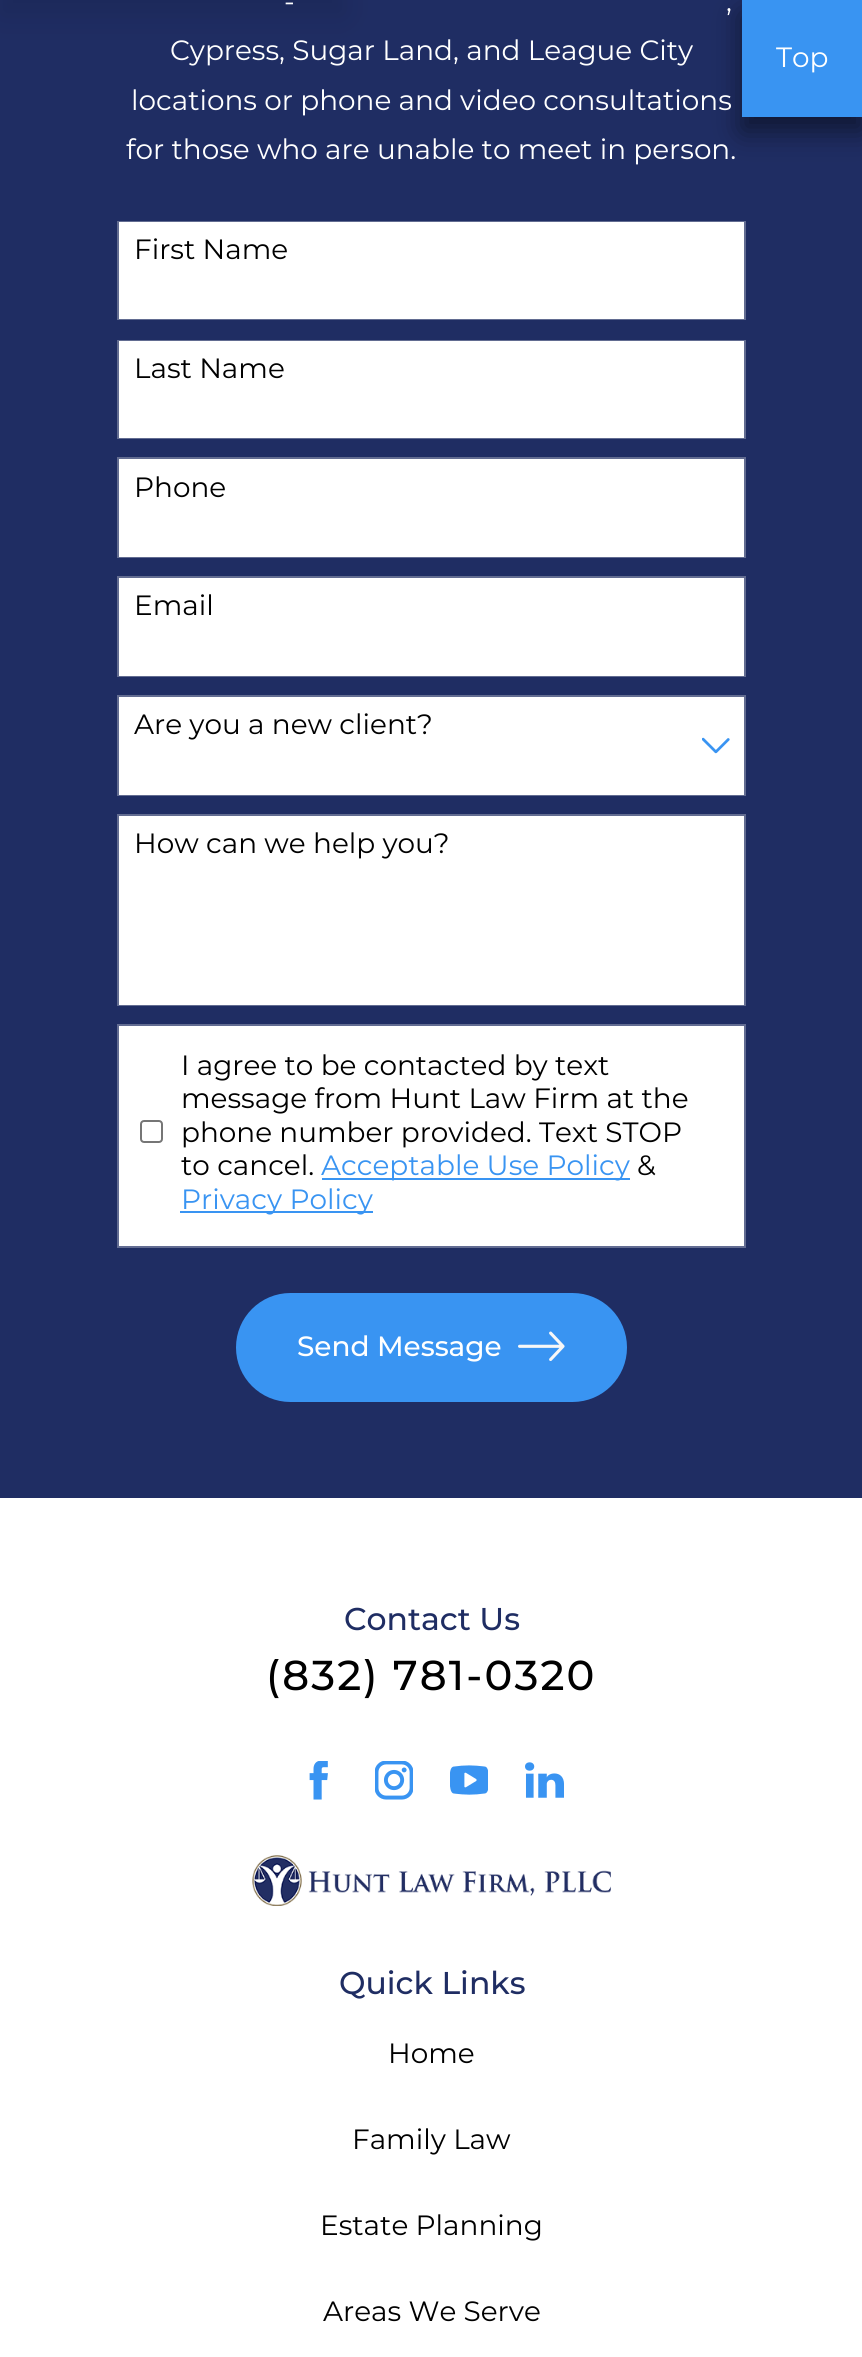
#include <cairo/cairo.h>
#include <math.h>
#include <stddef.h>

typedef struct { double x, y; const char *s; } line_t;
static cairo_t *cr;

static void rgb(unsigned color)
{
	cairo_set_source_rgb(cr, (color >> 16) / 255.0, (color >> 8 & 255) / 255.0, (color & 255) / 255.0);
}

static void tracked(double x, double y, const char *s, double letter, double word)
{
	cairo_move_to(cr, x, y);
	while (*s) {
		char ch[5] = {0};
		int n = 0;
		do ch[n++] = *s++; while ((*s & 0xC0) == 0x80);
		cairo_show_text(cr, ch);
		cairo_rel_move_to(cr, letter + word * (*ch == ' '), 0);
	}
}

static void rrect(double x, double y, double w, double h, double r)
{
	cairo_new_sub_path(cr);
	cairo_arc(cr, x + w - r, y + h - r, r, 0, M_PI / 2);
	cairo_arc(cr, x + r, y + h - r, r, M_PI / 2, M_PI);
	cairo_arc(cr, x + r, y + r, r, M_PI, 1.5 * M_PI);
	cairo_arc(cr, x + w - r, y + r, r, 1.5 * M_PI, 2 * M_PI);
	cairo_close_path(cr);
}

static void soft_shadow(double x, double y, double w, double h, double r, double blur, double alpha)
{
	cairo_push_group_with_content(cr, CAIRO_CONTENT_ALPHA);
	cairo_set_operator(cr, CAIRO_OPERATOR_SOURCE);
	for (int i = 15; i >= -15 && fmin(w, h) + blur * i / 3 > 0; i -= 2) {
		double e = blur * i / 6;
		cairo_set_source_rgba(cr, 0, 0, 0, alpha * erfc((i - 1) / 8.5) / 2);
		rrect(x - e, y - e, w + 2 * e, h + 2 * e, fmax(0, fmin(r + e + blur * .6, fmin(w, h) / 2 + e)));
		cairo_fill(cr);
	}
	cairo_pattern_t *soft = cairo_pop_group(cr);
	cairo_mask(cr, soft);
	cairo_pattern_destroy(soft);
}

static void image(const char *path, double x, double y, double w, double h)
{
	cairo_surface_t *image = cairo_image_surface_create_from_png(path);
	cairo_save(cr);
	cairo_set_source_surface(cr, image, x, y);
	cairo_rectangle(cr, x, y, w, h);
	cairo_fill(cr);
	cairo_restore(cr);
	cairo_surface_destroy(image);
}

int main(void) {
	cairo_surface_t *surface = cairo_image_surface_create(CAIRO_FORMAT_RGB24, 862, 2357);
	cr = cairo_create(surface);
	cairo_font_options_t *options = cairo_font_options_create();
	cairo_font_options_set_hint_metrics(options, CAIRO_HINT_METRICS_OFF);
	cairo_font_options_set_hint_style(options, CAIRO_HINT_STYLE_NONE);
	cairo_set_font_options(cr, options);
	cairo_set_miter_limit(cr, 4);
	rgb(0xffffff);
	cairo_paint(cr);
	rgb(0x1f2d63);
	cairo_rectangle(cr, 0, 0, 862, 1498);
	cairo_fill(cr);
	rgb(0xffffff);
	cairo_rectangle(cr, 119, 222, 625, 97);
	cairo_fill(cr);
	cairo_rectangle(cr, 118, 222, 627, 97);
	cairo_set_source_rgba(cr, 1, 1, 1, 0.3);
	cairo_stroke(cr);
	rgb(0xffffff);
	cairo_rectangle(cr, 119, 341, 625, 97);
	cairo_fill(cr);
	cairo_rectangle(cr, 118, 341, 627, 97);
	cairo_set_source_rgba(cr, 1, 1, 1, 0.3);
	cairo_stroke(cr);
	rgb(0xffffff);
	cairo_rectangle(cr, 119, 459, 625, 98);
	cairo_fill(cr);
	cairo_rectangle(cr, 118, 458, 627, 99);
	cairo_set_source_rgba(cr, 1, 1, 1, 0.3);
	cairo_stroke(cr);
	rgb(0xffffff);
	cairo_rectangle(cr, 119, 578, 625, 98);
	cairo_fill(cr);
	cairo_rectangle(cr, 118, 577, 627, 99);
	cairo_set_source_rgba(cr, 1, 1, 1, 0.3);
	cairo_stroke(cr);
	rgb(0xffffff);
	cairo_rectangle(cr, 119, 697, 625, 98);
	cairo_fill(cr);
	cairo_rectangle(cr, 118, 696, 627, 99);
	cairo_set_source_rgba(cr, 1, 1, 1, 0.3);
	cairo_stroke(cr);
	image("img/1.png", 702, 737, 28, 17);
	rgb(0xffffff);
	cairo_rectangle(cr, 119, 816, 625, 189);
	cairo_fill(cr);
	cairo_rectangle(cr, 118, 815, 627, 190);
	cairo_set_source_rgba(cr, 1, 1, 1, 0.3);
	cairo_stroke(cr);
	rgb(0xffffff);
	cairo_rectangle(cr, 118, 1025, 627, 222);
	cairo_fill_preserve(cr);
	rgb(0x626c92);
	cairo_stroke(cr);
	rrect(141, 1121, 21, 21, 3);
	rgb(0x767676);
	cairo_stroke(cr);
	rgb(0x3994f2);
	cairo_rectangle(cr, 322, 1178, 308, 2);
	cairo_fill(cr);
	cairo_rectangle(cr, 180, 1211, 193, 2);
	cairo_fill(cr);
	rrect(236, 1293, 391, 109, 54.5);
	cairo_fill(cr);
	image("img/2.png", 518, 1331, 47, 30);
	rgb(0x000000);
	soft_shadow(0, -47, 345, 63, 0, 15.5, 0.1);
	soft_shadow(742, 14, 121, 117, 0, 14, 0.5);
	rgb(0x3994f2);
	cairo_rectangle(cr, 742, 0, 120, 117);
	cairo_fill(cr);
	image("img/3.png", 309, 1761, 19, 39);
	image("img/4.png", 375, 1761, 38, 39);
	image("img/5.png", 450, 1765, 38, 30);
	image("img/6.png", 525, 1762, 39, 36);
	image("img/7.png", 252, 1855, 359, 51);
	cairo_select_font_face(cr, "Montserrat", CAIRO_FONT_SLANT_NORMAL, CAIRO_FONT_WEIGHT_NORMAL);
	cairo_set_font_size(cr, 27.9);
	rgb(0xffffff);
	{
		static const line_t items[] = {
			{284, 11, "-"},
			{726, 11, ","},
			{170, 60, "Cypress, Sugar Land, and League City"},
			{131, 110, "locations or phone and video consultations"},
			{126, 159, "for those who are unable to meet in person."},
		};
		for (size_t i = 0; i < sizeof items / sizeof *items; i++) {
			cairo_move_to(cr, items[i].x, items[i].y);
			cairo_show_text(cr, items[i].s);
		}
	}
	rgb(0x000000);
	{
		static const line_t items[] = {
			{134, 259, "First Name"},
			{134, 378, "Last Name"},
			{134, 497, "Phone"},
			{134, 615, "Email"},
			{134, 734, "Are you a new client?"},
			{134, 853, "How can we help you?"},
			{181, 1075, "I agree to be contacted by text"},
			{181, 1108, "message from Hunt Law Firm at the"},
			{181, 1142, "phone number provided. Text STOP"},
			{181, 1175, "to cancel."},
		};
		for (size_t i = 0; i < sizeof items / sizeof *items; i++) {
			cairo_move_to(cr, items[i].x, items[i].y);
			cairo_show_text(cr, items[i].s);
		}
	}
	rgb(0x3994f2);
	cairo_move_to(cr, 321, 1175);
	cairo_show_text(cr, "Acceptable Use Policy");
	rgb(0x000000);
	cairo_move_to(cr, 637, 1175);
	cairo_show_text(cr, "&");
	rgb(0x3994f2);
	cairo_move_to(cr, 181, 1209);
	cairo_show_text(cr, "Privacy Policy");
	cairo_select_font_face(cr, "Montserrat Medium", CAIRO_FONT_SLANT_NORMAL, CAIRO_FONT_WEIGHT_NORMAL);
	rgb(0xffffff);
	cairo_move_to(cr, 297, 1356);
	cairo_show_text(cr, "Send Message");
	cairo_select_font_face(cr, "Montserrat", CAIRO_FONT_SLANT_NORMAL, CAIRO_FONT_WEIGHT_NORMAL);
	cairo_move_to(cr, 776, 67);
	cairo_show_text(cr, "Top");
	cairo_select_font_face(cr, "Montserrat Medium", CAIRO_FONT_SLANT_NORMAL, CAIRO_FONT_WEIGHT_NORMAL);
	cairo_set_font_size(cr, 31.5);
	rgb(0x1f2d63);
	cairo_move_to(cr, 344, 1630);
	cairo_show_text(cr, "Contact Us");
	cairo_set_font_size(cr, 41.75);
	rgb(0x000000);
	tracked(266, 1690, "(832) 781-0320", 2.1, 0);
	cairo_set_font_size(cr, 31.5);
	rgb(0x1f2d63);
	cairo_move_to(cr, 339, 1994);
	cairo_show_text(cr, "Quick Links");
	cairo_select_font_face(cr, "Montserrat", CAIRO_FONT_SLANT_NORMAL, CAIRO_FONT_WEIGHT_NORMAL);
	cairo_set_font_size(cr, 27.9);
	rgb(0x000000);
	{
		static const line_t items[] = {
			{388, 2063, "Home"},
			{352, 2149, "Family Law"},
			{320, 2235, "Estate Planning"},
			{323, 2321, "Areas We Serve"},
		};
		for (size_t i = 0; i < sizeof items / sizeof *items; i++) {
			cairo_move_to(cr, items[i].x, items[i].y);
			cairo_show_text(cr, items[i].s);
		}
	}
	cairo_surface_write_to_png(surface, "page.png");
	cairo_font_options_destroy(options);
	cairo_destroy(cr);
	cairo_surface_destroy(surface);
	return 0;
}
